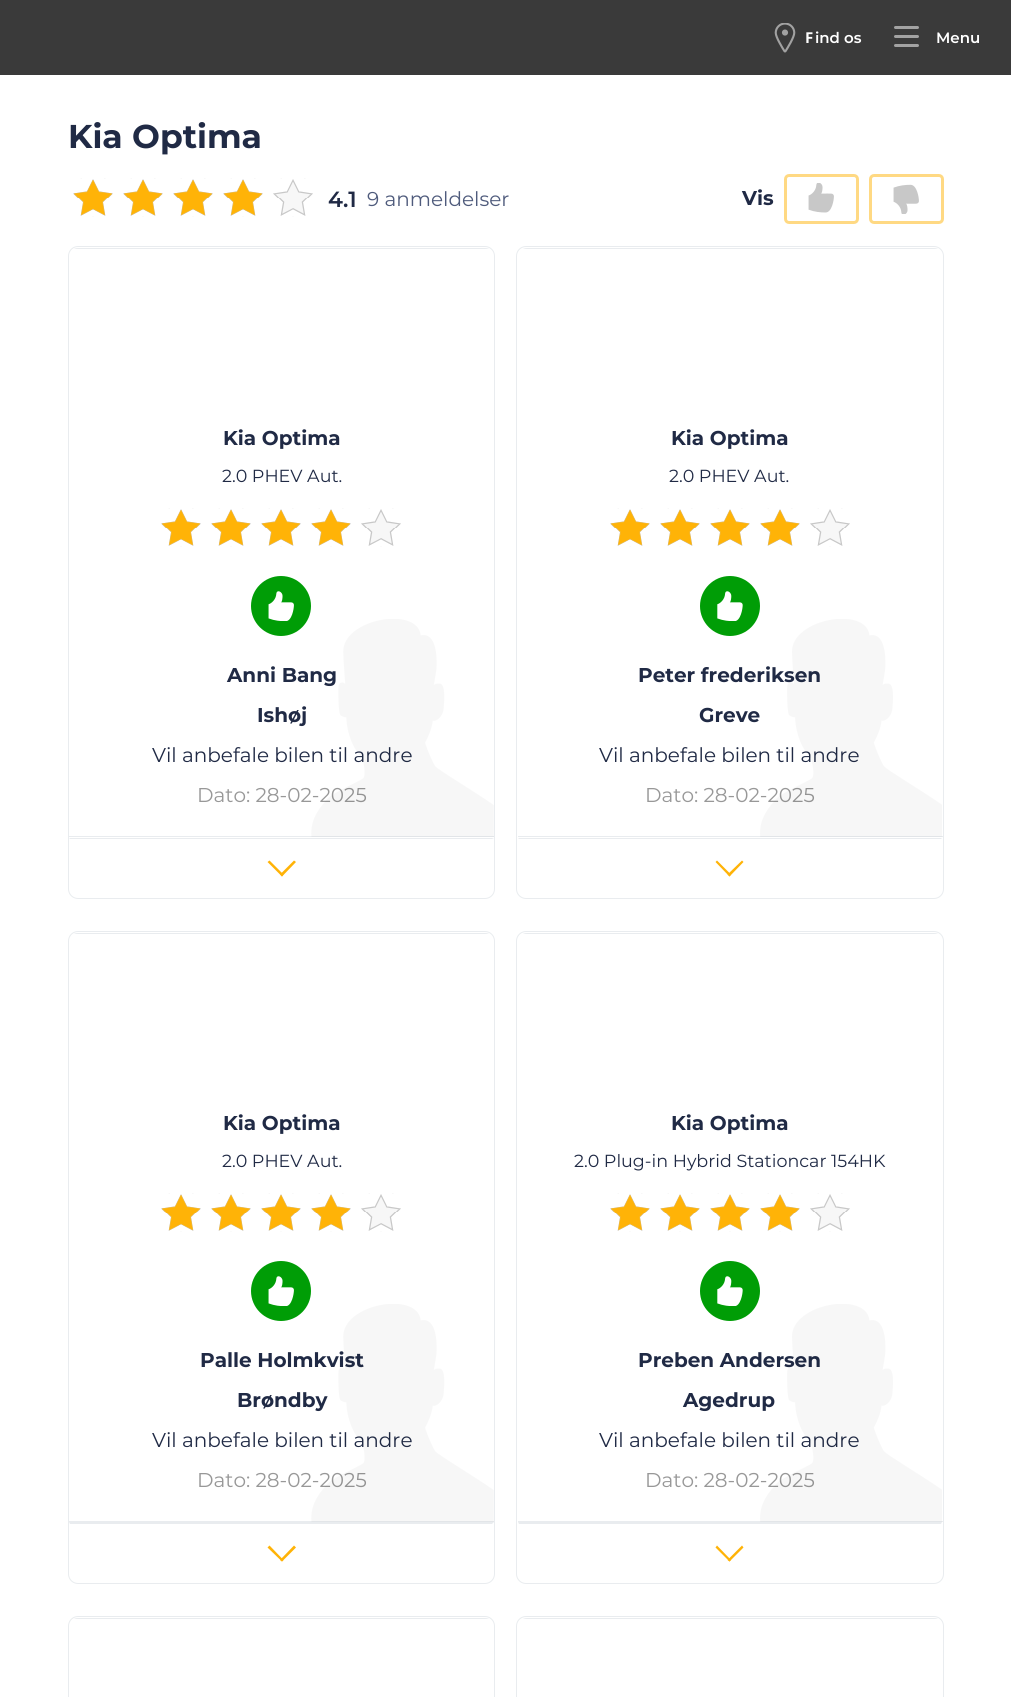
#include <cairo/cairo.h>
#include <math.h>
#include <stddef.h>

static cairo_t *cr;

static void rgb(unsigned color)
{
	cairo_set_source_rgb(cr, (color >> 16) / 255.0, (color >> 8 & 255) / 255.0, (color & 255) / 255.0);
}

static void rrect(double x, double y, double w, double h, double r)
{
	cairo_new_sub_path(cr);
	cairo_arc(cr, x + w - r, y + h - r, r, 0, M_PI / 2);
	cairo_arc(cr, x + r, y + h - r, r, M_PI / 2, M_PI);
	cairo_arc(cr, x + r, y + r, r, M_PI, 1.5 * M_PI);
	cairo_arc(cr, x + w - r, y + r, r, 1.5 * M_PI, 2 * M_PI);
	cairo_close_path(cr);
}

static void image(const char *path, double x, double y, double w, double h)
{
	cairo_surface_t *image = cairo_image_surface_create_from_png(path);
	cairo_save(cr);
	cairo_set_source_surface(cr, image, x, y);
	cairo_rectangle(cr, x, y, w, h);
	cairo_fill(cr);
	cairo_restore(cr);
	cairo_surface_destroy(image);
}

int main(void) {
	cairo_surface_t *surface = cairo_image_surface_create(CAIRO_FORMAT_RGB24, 1011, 1697);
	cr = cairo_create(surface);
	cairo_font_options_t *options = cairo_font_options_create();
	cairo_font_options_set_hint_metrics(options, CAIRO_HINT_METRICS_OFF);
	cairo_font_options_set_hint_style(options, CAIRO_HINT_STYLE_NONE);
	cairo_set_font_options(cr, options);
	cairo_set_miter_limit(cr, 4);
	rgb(0xffffff);
	cairo_paint(cr);
	rgb(0x3a3a3a);
	cairo_rectangle(cr, 0, 0, 1011, 75);
	cairo_fill(cr);
	image("img/1.png", 774, 23, 22, 30);
	rgb(0xa2a2a2);
	rrect(894, 35, 25, 3, 1.5);
	cairo_fill(cr);
	rrect(894, 26, 25, 3, 1.5);
	cairo_fill(cr);
	rrect(894, 44, 25, 3, 1.5);
	cairo_fill(cr);
	image("img/2.png", 73, 178, 240, 39);
	image("img/3.png", 74, 180, 188, 36);
	rrect(785.5, 175.5, 72, 47, 3.5);
	rgb(0xffd983);
	cairo_set_line_width(cr, 3);
	cairo_stroke(cr);
	image("img/4.png", 808, 183, 26, 30);
	rrect(870.5, 175.5, 72, 47, 3.5);
	cairo_stroke(cr);
	image("img/5.png", 893, 184, 26, 30);
	rrect(68.5, 246.5, 426, 652, 9.5);
	rgb(0xe9ecef);
	cairo_set_line_width(cr, 1);
	cairo_stroke(cr);
	cairo_save(cr);
	rrect(69, 248, 425, 650, 9);
	cairo_clip(cr);
	cairo_rectangle(cr, 69, 248, 425, 1);
	cairo_fill(cr);
	cairo_restore(cr);
	cairo_rectangle(cr, 69, 836, 425, 1);
	cairo_fill(cr);
	image("img/2.png", 161, 508, 240, 39);
	image("img/3.png", 162, 510, 188, 36);
	rgb(0x009d06);
	cairo_arc(cr, 281, 606, 30, 0, 2 * M_PI);
	cairo_fill(cr);
	image("img/6.png", 268, 591, 26, 30);
	rgb(0xe9ecef);
	cairo_new_path(cr);
	cairo_move_to(cr, 69, 838);
	cairo_line_to(cr, 494, 838);
	cairo_line_to(cr, 492, 839);
	cairo_line_to(cr, 70, 839);
	cairo_close_path(cr);
	cairo_fill(cr);
	rgb(0xffb307);
	cairo_new_path(cr);
	cairo_move_to(cr, 280, 874.5);
	cairo_line_to(cr, 294, 860.5);
	cairo_line_to(cr, 296, 862);
	cairo_line_to(cr, 282, 876.5);
	cairo_close_path(cr);
	cairo_fill(cr);
	cairo_new_path(cr);
	cairo_move_to(cr, 267.5, 862);
	cairo_line_to(cr, 269.5, 860.5);
	cairo_line_to(cr, 283.5, 874.5);
	cairo_line_to(cr, 282, 876.5);
	cairo_close_path(cr);
	cairo_fill(cr);
	rrect(516.5, 246.5, 427, 652, 9.5);
	rgb(0xe9ecef);
	cairo_stroke(cr);
	cairo_save(cr);
	rrect(518, 248, 425, 650, 9);
	cairo_clip(cr);
	cairo_rectangle(cr, 518, 248, 425, 1);
	cairo_fill(cr);
	cairo_restore(cr);
	cairo_rectangle(cr, 518, 836, 425, 1);
	cairo_fill(cr);
	image("img/2.png", 610, 508, 240, 39);
	image("img/3.png", 611, 510, 188, 36);
	rgb(0x009d06);
	cairo_arc(cr, 730, 606, 30, 0, 2 * M_PI);
	cairo_fill(cr);
	image("img/8.png", 717, 591, 26, 30);
	rgb(0xe9ecef);
	cairo_new_path(cr);
	cairo_move_to(cr, 518, 838);
	cairo_line_to(cr, 942, 838);
	cairo_line_to(cr, 941, 839);
	cairo_line_to(cr, 519, 839);
	cairo_close_path(cr);
	cairo_fill(cr);
	rgb(0xffb307);
	cairo_new_path(cr);
	cairo_move_to(cr, 727.5, 874.5);
	cairo_line_to(cr, 742, 860.5);
	cairo_line_to(cr, 743.5, 862);
	cairo_line_to(cr, 729.5, 876.5);
	cairo_close_path(cr);
	cairo_fill(cr);
	cairo_new_path(cr);
	cairo_move_to(cr, 715.5, 862);
	cairo_line_to(cr, 717, 860.5);
	cairo_line_to(cr, 731, 874.5);
	cairo_line_to(cr, 729.5, 876.5);
	cairo_close_path(cr);
	cairo_fill(cr);
	rrect(68.5, 931.5, 426, 652, 9.5);
	rgb(0xe9ecef);
	cairo_stroke(cr);
	cairo_save(cr);
	rrect(69, 933, 425, 650, 9);
	cairo_clip(cr);
	cairo_rectangle(cr, 69, 933, 425, 1);
	cairo_fill(cr);
	cairo_restore(cr);
	cairo_rectangle(cr, 69, 1521, 425, 1);
	cairo_fill(cr);
	image("img/10.png", 161, 1193, 240, 39);
	image("img/11.png", 162, 1195, 188, 36);
	rgb(0x009d06);
	cairo_arc(cr, 281, 1291, 30, 0, 2 * M_PI);
	cairo_fill(cr);
	image("img/6.png", 268, 1276, 26, 30);
	rgb(0xe9ecef);
	cairo_new_path(cr);
	cairo_move_to(cr, 69, 1522);
	cairo_line_to(cr, 494, 1522);
	cairo_line_to(cr, 492, 1524);
	cairo_line_to(cr, 70, 1524);
	cairo_close_path(cr);
	cairo_fill(cr);
	rgb(0xffb307);
	cairo_new_path(cr);
	cairo_move_to(cr, 280, 1560);
	cairo_line_to(cr, 294, 1545.5);
	cairo_line_to(cr, 296, 1547.5);
	cairo_line_to(cr, 282, 1561.5);
	cairo_close_path(cr);
	cairo_fill(cr);
	cairo_new_path(cr);
	cairo_move_to(cr, 267.5, 1547.5);
	cairo_line_to(cr, 269.5, 1545.5);
	cairo_line_to(cr, 283.5, 1560);
	cairo_line_to(cr, 282, 1561.5);
	cairo_close_path(cr);
	cairo_fill(cr);
	rrect(516.5, 931.5, 427, 652, 9.5);
	rgb(0xe9ecef);
	cairo_stroke(cr);
	cairo_save(cr);
	rrect(518, 933, 425, 650, 9);
	cairo_clip(cr);
	cairo_rectangle(cr, 518, 933, 425, 1);
	cairo_fill(cr);
	cairo_restore(cr);
	cairo_rectangle(cr, 518, 1521, 425, 1);
	cairo_fill(cr);
	image("img/10.png", 610, 1193, 240, 39);
	image("img/11.png", 611, 1195, 188, 36);
	rgb(0x009d06);
	cairo_arc(cr, 730, 1291, 30, 0, 2 * M_PI);
	cairo_fill(cr);
	image("img/8.png", 717, 1276, 26, 30);
	rgb(0xe9ecef);
	cairo_new_path(cr);
	cairo_move_to(cr, 518, 1522);
	cairo_line_to(cr, 942, 1522);
	cairo_line_to(cr, 941, 1524);
	cairo_line_to(cr, 519, 1524);
	cairo_close_path(cr);
	cairo_fill(cr);
	rgb(0xffb307);
	cairo_new_path(cr);
	cairo_move_to(cr, 727.5, 1560);
	cairo_line_to(cr, 742, 1545.5);
	cairo_line_to(cr, 743.5, 1547.5);
	cairo_line_to(cr, 729.5, 1561.5);
	cairo_close_path(cr);
	cairo_fill(cr);
	cairo_new_path(cr);
	cairo_move_to(cr, 715.5, 1547.5);
	cairo_line_to(cr, 717, 1545.5);
	cairo_line_to(cr, 731, 1560);
	cairo_line_to(cr, 729.5, 1561.5);
	cairo_close_path(cr);
	cairo_fill(cr);
	rrect(68.5, 1616.5, 426, 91, 9.5);
	rgb(0xe9ecef);
	cairo_stroke(cr);
	cairo_save(cr);
	rrect(69, 1618, 425, 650, 9);
	cairo_clip(cr);
	cairo_rectangle(cr, 69, 1618, 425, 1);
	cairo_fill(cr);
	cairo_restore(cr);
	rrect(516.5, 1616.5, 427, 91, 9.5);
	cairo_stroke(cr);
	cairo_save(cr);
	rrect(518, 1618, 425, 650, 9);
	cairo_clip(cr);
	cairo_rectangle(cr, 518, 1618, 425, 1);
	cairo_fill(cr);
	cairo_restore(cr);
	cairo_select_font_face(cr, "Noto Sans", CAIRO_FONT_SLANT_NORMAL, CAIRO_FONT_WEIGHT_BOLD);
	cairo_set_font_size(cr, 15);
	rgb(0xffffff);
	cairo_move_to(cr, 805, 43);
	cairo_show_text(cr, "F");
	cairo_select_font_face(cr, "Montserrat SemiBold", CAIRO_FONT_SLANT_NORMAL, CAIRO_FONT_WEIGHT_NORMAL);
	cairo_move_to(cr, 815, 43);
	cairo_show_text(cr, "ind os");
	cairo_move_to(cr, 936, 43);
	cairo_show_text(cr, "Menu");
	cairo_select_font_face(cr, "Montserrat", CAIRO_FONT_SLANT_NORMAL, CAIRO_FONT_WEIGHT_BOLD);
	cairo_set_font_size(cr, 33);
	rgb(0x202a45);
	cairo_move_to(cr, 68, 148);
	cairo_show_text(cr, "Kia Optima");
	cairo_select_font_face(cr, "Montserrat SemiBold", CAIRO_FONT_SLANT_NORMAL, CAIRO_FONT_WEIGHT_NORMAL);
	cairo_set_font_size(cr, 22);
	cairo_move_to(cr, 328, 207);
	cairo_show_text(cr, "4.1");
	cairo_select_font_face(cr, "Montserrat", CAIRO_FONT_SLANT_NORMAL, CAIRO_FONT_WEIGHT_NORMAL);
	cairo_set_font_size(cr, 20);
	rgb(0x4f5b7c);
	cairo_move_to(cr, 367, 206);
	cairo_show_text(cr, "9 anmeldelser");
	cairo_select_font_face(cr, "Montserrat", CAIRO_FONT_SLANT_NORMAL, CAIRO_FONT_WEIGHT_BOLD);
	rgb(0x202a45);
	cairo_move_to(cr, 742, 205);
	cairo_show_text(cr, "Vis");
	cairo_move_to(cr, 223, 445);
	cairo_show_text(cr, "Kia Optima");
	cairo_select_font_face(cr, "Montserrat", CAIRO_FONT_SLANT_NORMAL, CAIRO_FONT_WEIGHT_NORMAL);
	cairo_set_font_size(cr, 17.5);
	cairo_move_to(cr, 222, 482);
	cairo_show_text(cr, "2.0 PHEV Aut.");
	cairo_select_font_face(cr, "Montserrat", CAIRO_FONT_SLANT_NORMAL, CAIRO_FONT_WEIGHT_BOLD);
	cairo_set_font_size(cr, 20);
	cairo_move_to(cr, 227, 682);
	cairo_show_text(cr, "Anni Bang");
	cairo_move_to(cr, 257, 722);
	cairo_show_text(cr, "Ishøj");
	cairo_select_font_face(cr, "Montserrat", CAIRO_FONT_SLANT_NORMAL, CAIRO_FONT_WEIGHT_NORMAL);
	cairo_move_to(cr, 152, 762);
	cairo_show_text(cr, "Vil anbefale bilen til andre");
	rgb(0x989898);
	cairo_move_to(cr, 197, 802);
	cairo_show_text(cr, "Dato: 28-02-2025");
	image("img/7.png", 311, 619, 183, 218);
	cairo_select_font_face(cr, "Montserrat", CAIRO_FONT_SLANT_NORMAL, CAIRO_FONT_WEIGHT_BOLD);
	rgb(0x202a45);
	cairo_move_to(cr, 671, 445);
	cairo_show_text(cr, "Kia Optima");
	cairo_select_font_face(cr, "Montserrat", CAIRO_FONT_SLANT_NORMAL, CAIRO_FONT_WEIGHT_NORMAL);
	cairo_set_font_size(cr, 17.5);
	cairo_move_to(cr, 669, 482);
	cairo_show_text(cr, "2.0 PHEV Aut.");
	cairo_select_font_face(cr, "Montserrat", CAIRO_FONT_SLANT_NORMAL, CAIRO_FONT_WEIGHT_BOLD);
	cairo_set_font_size(cr, 20);
	cairo_move_to(cr, 638, 682);
	cairo_show_text(cr, "Peter frederiksen");
	cairo_move_to(cr, 699, 722);
	cairo_show_text(cr, "Greve");
	cairo_select_font_face(cr, "Montserrat", CAIRO_FONT_SLANT_NORMAL, CAIRO_FONT_WEIGHT_NORMAL);
	cairo_move_to(cr, 599, 762);
	cairo_show_text(cr, "Vil anbefale bilen til andre");
	rgb(0x989898);
	cairo_move_to(cr, 645, 802);
	cairo_show_text(cr, "Dato: 28-02-2025");
	image("img/9.png", 760, 619, 182, 218);
	cairo_select_font_face(cr, "Montserrat", CAIRO_FONT_SLANT_NORMAL, CAIRO_FONT_WEIGHT_BOLD);
	rgb(0x202a45);
	cairo_move_to(cr, 223, 1130);
	cairo_show_text(cr, "Kia Optima");
	cairo_select_font_face(cr, "Montserrat", CAIRO_FONT_SLANT_NORMAL, CAIRO_FONT_WEIGHT_NORMAL);
	cairo_set_font_size(cr, 17.5);
	cairo_move_to(cr, 222, 1167);
	cairo_show_text(cr, "2.0 PHEV Aut.");
	cairo_select_font_face(cr, "Montserrat", CAIRO_FONT_SLANT_NORMAL, CAIRO_FONT_WEIGHT_BOLD);
	cairo_set_font_size(cr, 20);
	cairo_move_to(cr, 200, 1367);
	cairo_show_text(cr, "Palle Holmkvist");
	cairo_move_to(cr, 237, 1407);
	cairo_show_text(cr, "Brøndby");
	cairo_select_font_face(cr, "Montserrat", CAIRO_FONT_SLANT_NORMAL, CAIRO_FONT_WEIGHT_NORMAL);
	cairo_move_to(cr, 152, 1447);
	cairo_show_text(cr, "Vil anbefale bilen til andre");
	rgb(0x989898);
	cairo_move_to(cr, 197, 1487);
	cairo_show_text(cr, "Dato: 28-02-2025");
	image("img/12.png", 311, 1304, 183, 218);
	cairo_select_font_face(cr, "Montserrat", CAIRO_FONT_SLANT_NORMAL, CAIRO_FONT_WEIGHT_BOLD);
	rgb(0x202a45);
	cairo_move_to(cr, 671, 1130);
	cairo_show_text(cr, "Kia Optima");
	cairo_select_font_face(cr, "Montserrat", CAIRO_FONT_SLANT_NORMAL, CAIRO_FONT_WEIGHT_NORMAL);
	cairo_set_font_size(cr, 17.5);
	cairo_move_to(cr, 574, 1167);
	cairo_show_text(cr, "2.0 Plug-in Hybrid Stationcar 154HK");
	cairo_select_font_face(cr, "Montserrat", CAIRO_FONT_SLANT_NORMAL, CAIRO_FONT_WEIGHT_BOLD);
	cairo_set_font_size(cr, 20);
	cairo_move_to(cr, 638, 1367);
	cairo_show_text(cr, "Preben Andersen");
	cairo_move_to(cr, 683, 1407);
	cairo_show_text(cr, "Agedrup");
	cairo_select_font_face(cr, "Montserrat", CAIRO_FONT_SLANT_NORMAL, CAIRO_FONT_WEIGHT_NORMAL);
	cairo_move_to(cr, 599, 1447);
	cairo_show_text(cr, "Vil anbefale bilen til andre");
	rgb(0x989898);
	cairo_move_to(cr, 645, 1487);
	cairo_show_text(cr, "Dato: 28-02-2025");
	image("img/13.png", 760, 1304, 182, 218);
	cairo_surface_write_to_png(surface, "page.png");
	cairo_font_options_destroy(options);
	cairo_destroy(cr);
	cairo_surface_destroy(surface);
	return 0;
}
